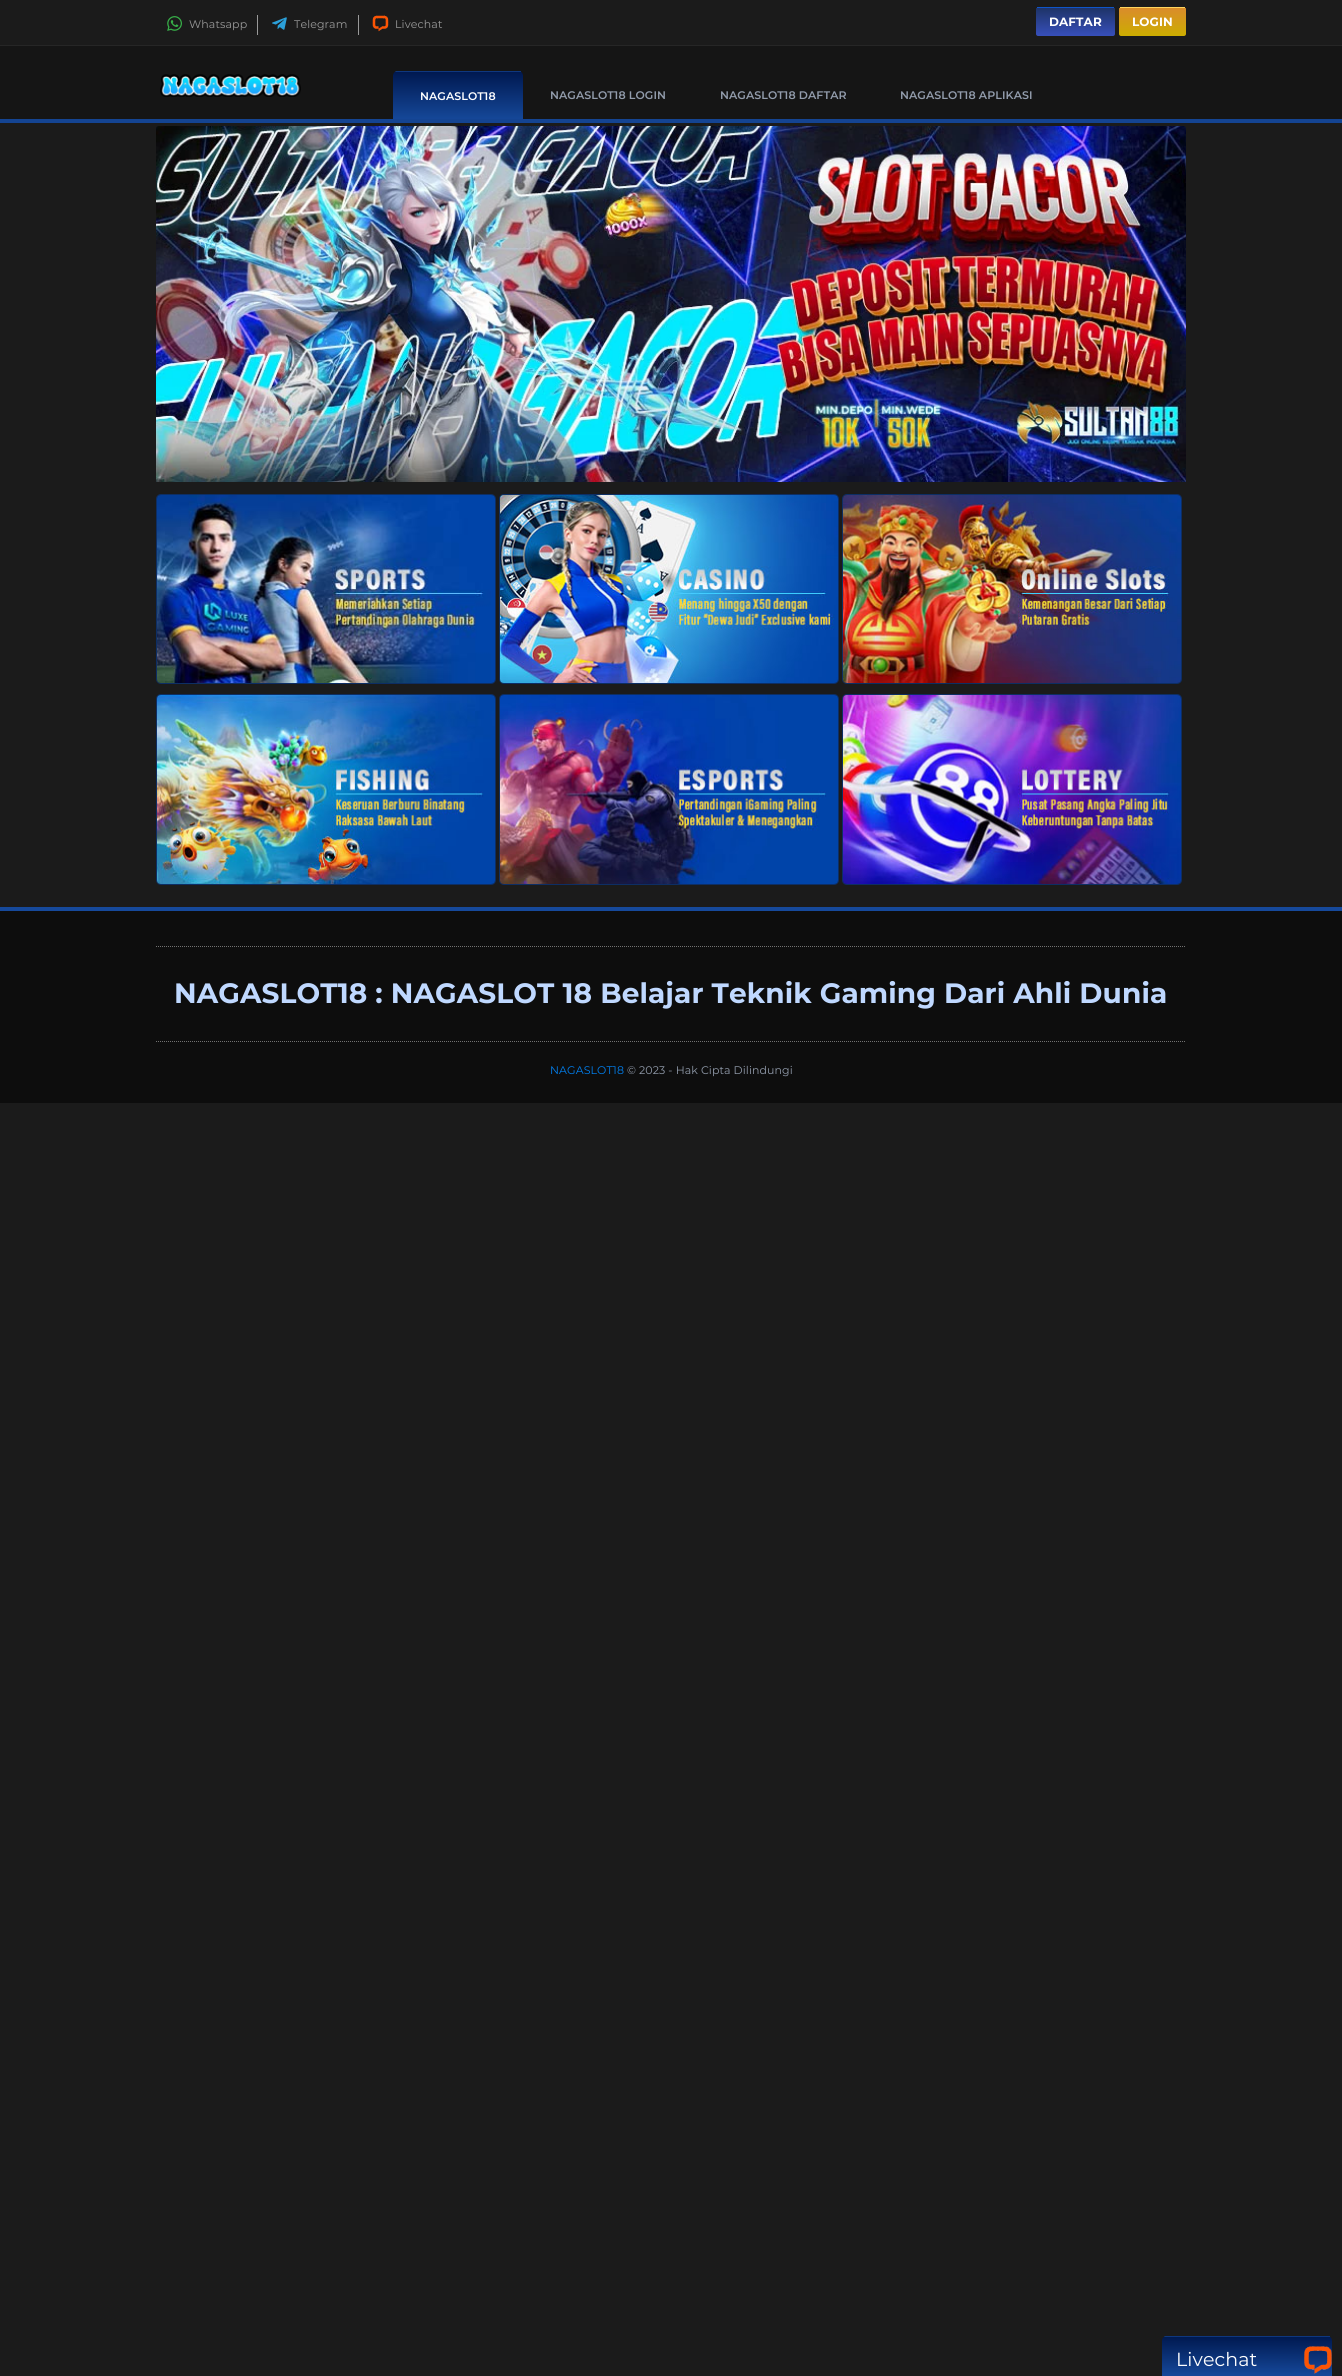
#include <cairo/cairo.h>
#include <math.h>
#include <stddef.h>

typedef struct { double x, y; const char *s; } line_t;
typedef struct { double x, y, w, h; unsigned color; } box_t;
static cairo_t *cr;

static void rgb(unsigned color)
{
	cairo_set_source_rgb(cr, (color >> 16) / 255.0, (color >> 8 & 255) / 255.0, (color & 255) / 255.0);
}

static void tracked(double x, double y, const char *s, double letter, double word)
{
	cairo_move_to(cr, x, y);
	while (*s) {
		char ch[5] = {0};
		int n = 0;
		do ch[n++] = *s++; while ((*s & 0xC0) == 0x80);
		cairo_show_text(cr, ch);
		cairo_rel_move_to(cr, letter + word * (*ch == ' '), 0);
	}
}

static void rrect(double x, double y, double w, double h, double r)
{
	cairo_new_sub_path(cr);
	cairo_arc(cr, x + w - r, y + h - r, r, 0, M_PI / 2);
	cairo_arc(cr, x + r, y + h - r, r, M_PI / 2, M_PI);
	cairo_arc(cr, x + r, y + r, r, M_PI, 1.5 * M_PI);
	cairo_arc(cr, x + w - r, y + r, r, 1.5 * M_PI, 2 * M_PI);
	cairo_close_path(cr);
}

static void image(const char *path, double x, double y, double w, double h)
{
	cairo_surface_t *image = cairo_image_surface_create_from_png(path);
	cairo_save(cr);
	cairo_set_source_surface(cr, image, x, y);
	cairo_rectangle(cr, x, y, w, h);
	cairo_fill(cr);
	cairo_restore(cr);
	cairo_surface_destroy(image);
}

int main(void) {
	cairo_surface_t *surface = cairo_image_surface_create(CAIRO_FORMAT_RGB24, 1342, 2376);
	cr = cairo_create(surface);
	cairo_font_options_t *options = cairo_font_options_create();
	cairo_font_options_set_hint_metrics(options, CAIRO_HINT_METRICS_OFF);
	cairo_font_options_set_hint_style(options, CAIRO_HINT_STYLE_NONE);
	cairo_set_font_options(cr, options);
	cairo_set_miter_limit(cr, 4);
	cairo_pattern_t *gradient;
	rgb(0x1b1b1b);
	cairo_paint(cr);
	rgb(0x262626);
	cairo_rectangle(cr, 0, 45, 1342, 1);
	cairo_fill(cr);
	rgb(0x999999);
	cairo_rectangle(cr, 257, 15, 1, 20);
	cairo_fill(cr);
	image("img/1.png", 167, 16, 15, 15);
	cairo_rectangle(cr, 358, 15, 1, 20);
	cairo_fill(cr);
	image("img/2.png", 272, 17, 15, 13);
	image("img/3.png", 372, 15, 17, 17);
	cairo_save(cr);
	rrect(1036, 7, 79, 29, 2);
	cairo_clip(cr);
	gradient = cairo_pattern_create_linear(1076, 8, 1076, 36);
	cairo_pattern_add_color_stop_rgba(gradient, 0, 0.118, 0.2, 0.408, 1);
	cairo_pattern_add_color_stop_rgba(gradient, 1, 0.216, 0.31, 0.733, 1);
	cairo_set_source(cr, gradient);
	cairo_pattern_destroy(gradient);
	cairo_new_path(cr);
	cairo_move_to(cr, 1036, 8);
	cairo_line_to(cr, 1115, 8);
	cairo_line_to(cr, 1115, 34);
	cairo_curve_to(cr, 1115, 35, 1114, 36, 1113, 36);
	cairo_line_to(cr, 1038, 36);
	cairo_curve_to(cr, 1037, 36, 1036, 35, 1036, 34);
	cairo_close_path(cr);
	cairo_fill(cr);
	cairo_restore(cr);
	rgb(0x0f56ca);
	cairo_rectangle(cr, 1037, 7, 77, 1);
	cairo_fill(cr);
	cairo_save(cr);
	rrect(1119, 7, 67, 29, 2);
	cairo_clip(cr);
	gradient = cairo_pattern_create_linear(1153, 8, 1153, 36);
	cairo_pattern_add_color_stop_rgba(gradient, 0, 0.855, 0.549, 0.169, 1);
	cairo_pattern_add_color_stop_rgba(gradient, 1, 0.8, 0.678, 0, 1);
	cairo_set_source(cr, gradient);
	cairo_pattern_destroy(gradient);
	cairo_new_path(cr);
	cairo_move_to(cr, 1119, 8);
	cairo_line_to(cr, 1186, 8);
	cairo_line_to(cr, 1186, 34);
	cairo_curve_to(cr, 1186, 35, 1185, 36, 1184, 36);
	cairo_line_to(cr, 1121, 36);
	cairo_curve_to(cr, 1120, 36, 1119, 35, 1119, 34);
	cairo_close_path(cr);
	cairo_fill(cr);
	cairo_restore(cr);
	{
		static const box_t items[] = {
			{1120, 7, 65, 1, 0xffd55f},
			{0, 46, 1342, 73, 0x151515},
			{0, 119, 1342, 4, 0x144492},
		};
		for (size_t i = 0; i < sizeof items / sizeof *items; i++) {
			rgb(items[i].color);
			cairo_rectangle(cr, items[i].x, items[i].y, items[i].w, items[i].h);
			cairo_fill(cr);
		}
	}
	image("img/4.png", 160, 74, 141, 23);
	cairo_save(cr);
	cairo_new_path(cr);
	cairo_move_to(cr, 398, 71);
	cairo_line_to(cr, 518, 71);
	cairo_curve_to(cr, 521, 71, 523, 73, 523, 76);
	cairo_line_to(cr, 523, 121);
	cairo_line_to(cr, 393, 121);
	cairo_line_to(cr, 393, 76);
	cairo_curve_to(cr, 393, 73, 395, 71, 398, 71);
	cairo_close_path(cr);
	cairo_clip(cr);
	gradient = cairo_pattern_create_linear(458, 23, 458, 72);
	cairo_pattern_add_color_stop_rgba(gradient, 0, 0, 0.098, 0.314, 1);
	cairo_pattern_add_color_stop_rgba(gradient, 1, 0.086, 0.286, 0.608, 1);
	cairo_set_source(cr, gradient);
	cairo_pattern_destroy(gradient);
	cairo_rectangle(cr, 393, 71, 3, 1);
	cairo_fill(cr);
	gradient = cairo_pattern_create_linear(458, 72, 458, 121);
	cairo_pattern_add_color_stop_rgba(gradient, 0, 0, 0.098, 0.314, 1);
	cairo_pattern_add_color_stop_rgba(gradient, 1, 0.086, 0.286, 0.608, 1);
	cairo_set_source(cr, gradient);
	cairo_pattern_destroy(gradient);
	cairo_rectangle(cr, 393, 72, 130, 47);
	cairo_fill(cr);
	cairo_restore(cr);
	rgb(0x0f377e);
	cairo_rectangle(cr, 396, 71, 125, 1);
	cairo_fill(cr);
	image("img/5.png", 156, 126, 1030, 356);
	rrect(156.5, 494.5, 339, 189, 4.5);
	rgb(0x0d2e64);
	cairo_set_line_width(cr, 1);
	cairo_stroke(cr);
	image("img/6.png", 157, 495, 338, 188);
	rrect(499.5, 494.5, 339, 189, 4.5);
	cairo_stroke(cr);
	image("img/7.png", 500, 495, 338, 188);
	rrect(842.5, 494.5, 339, 189, 4.5);
	cairo_stroke(cr);
	image("img/8.png", 843, 495, 338, 188);
	rrect(156.5, 694.5, 339, 190, 4.5);
	cairo_stroke(cr);
	image("img/9.png", 157, 695, 338, 189);
	rrect(499.5, 694.5, 339, 190, 4.5);
	cairo_stroke(cr);
	image("img/10.png", 500, 695, 338, 189);
	rrect(842.5, 694.5, 339, 190, 4.5);
	cairo_stroke(cr);
	image("img/11.png", 843, 695, 338, 189);
	rgb(0x0d0d0d);
	cairo_rectangle(cr, 0, 911, 1342, 192);
	cairo_fill(cr);
	rgb(0x16499b);
	cairo_rectangle(cr, 0, 907, 1342, 4);
	cairo_fill(cr);
	cairo_new_path(cr);
	cairo_move_to(cr, 156, 946.5);
	cairo_line_to(cr, 1186, 946.5);
	rgb(0x727272);
	cairo_set_dash(cr, (double[]){1, 1}, 2, 0);
	cairo_stroke(cr);
	cairo_new_path(cr);
	cairo_move_to(cr, 156, 1041.5);
	cairo_line_to(cr, 1186, 1041.5);
	cairo_stroke(cr);
	cairo_save(cr);
	cairo_new_path(cr);
	cairo_move_to(cr, 1167, 2336);
	cairo_line_to(cr, 1327, 2336);
	cairo_curve_to(cr, 1330, 2336, 1332, 2338, 1332, 2341);
	cairo_line_to(cr, 1332, 2376);
	cairo_line_to(cr, 1162, 2376);
	cairo_line_to(cr, 1162, 2341);
	cairo_curve_to(cr, 1162, 2338, 1164, 2336, 1167, 2336);
	cairo_close_path(cr);
	cairo_clip(cr);
	gradient = cairo_pattern_create_linear(1247, 2298, 1247, 2337);
	cairo_pattern_add_color_stop_rgba(gradient, 0, 0, 0.098, 0.314, 1);
	cairo_pattern_add_color_stop_rgba(gradient, 1, 0.086, 0.286, 0.608, 1);
	cairo_set_source(cr, gradient);
	cairo_pattern_destroy(gradient);
	cairo_rectangle(cr, 1162, 2336, 3, 1);
	cairo_fill(cr);
	gradient = cairo_pattern_create_linear(1247, 2337, 1247, 2376);
	cairo_pattern_add_color_stop_rgba(gradient, 0, 0, 0.098, 0.314, 1);
	cairo_pattern_add_color_stop_rgba(gradient, 1, 0.086, 0.286, 0.608, 1);
	cairo_set_source(cr, gradient);
	cairo_pattern_destroy(gradient);
	cairo_rectangle(cr, 1162, 2337, 170, 39);
	cairo_fill(cr);
	cairo_restore(cr);
	rgb(0x0f377e);
	cairo_rectangle(cr, 1165, 2336, 165, 1);
	cairo_fill(cr);
	image("img/12.png", 1304, 2346, 28, 28);
	cairo_select_font_face(cr, "Montserrat", CAIRO_FONT_SLANT_NORMAL, CAIRO_FONT_WEIGHT_NORMAL);
	cairo_set_font_size(cr, 11);
	rgb(0x999999);
	{
		static const line_t items[] = {
			{189, 28, "Whatsapp"},
			{294, 28, "Telegram"},
			{395, 28, "Livechat"},
		};
		for (size_t i = 0; i < sizeof items / sizeof *items; i++) {
			tracked(items[i].x, items[i].y, items[i].s, 0.1, 0);
		}
	}
	cairo_select_font_face(cr, "Montserrat", CAIRO_FONT_SLANT_NORMAL, CAIRO_FONT_WEIGHT_BOLD);
	cairo_set_font_size(cr, 12);
	rgb(0xffffff);
	tracked(1049, 26, "DAFTAR", 0.1, 0);
	tracked(1132, 26, "LOGIN", 0.1, 0);
	cairo_select_font_face(cr, "Montserrat SemiBold", CAIRO_FONT_SLANT_NORMAL, CAIRO_FONT_WEIGHT_NORMAL);
	cairo_set_font_size(cr, 11);
	tracked(420, 100, "NAGASLOT18", 0.1, 0);
	rgb(0x929cac);
	{
		static const line_t items[] = {
			{550, 99, "NAGASLOT18 LOGIN"},
			{720, 99, "NAGASLOT18 DAFTAR"},
			{900, 99, "NAGASLOT18 APLIKASI"},
		};
		for (size_t i = 0; i < sizeof items / sizeof *items; i++) {
			tracked(items[i].x, items[i].y, items[i].s, 0.1, 0);
		}
	}
	cairo_select_font_face(cr, "Montserrat", CAIRO_FONT_SLANT_NORMAL, CAIRO_FONT_WEIGHT_BOLD);
	cairo_set_font_size(cr, 28);
	rgb(0xbfd8ff);
	tracked(174, 1003, "NAGASLOT18 : NAGASLOT 18 Belajar Teknik Gaming Dari Ahli Dunia", 0.1, 0);
	cairo_select_font_face(cr, "Montserrat", CAIRO_FONT_SLANT_NORMAL, CAIRO_FONT_WEIGHT_NORMAL);
	cairo_set_font_size(cr, 11);
	rgb(0x0180f0);
	tracked(550, 1074, "NAGASLOT18", 0.1, 0);
	rgb(0x929cac);
	tracked(627, 1074, "© 2023 - Hak Cipta Dilindungi", 0.1, 0);
	cairo_set_font_size(cr, 19);
	rgb(0xffffff);
	tracked(1176, 2366, "Livechat", 0.1, 0);
	cairo_surface_write_to_png(surface, "page.png");
	cairo_font_options_destroy(options);
	cairo_destroy(cr);
	cairo_surface_destroy(surface);
	return 0;
}
